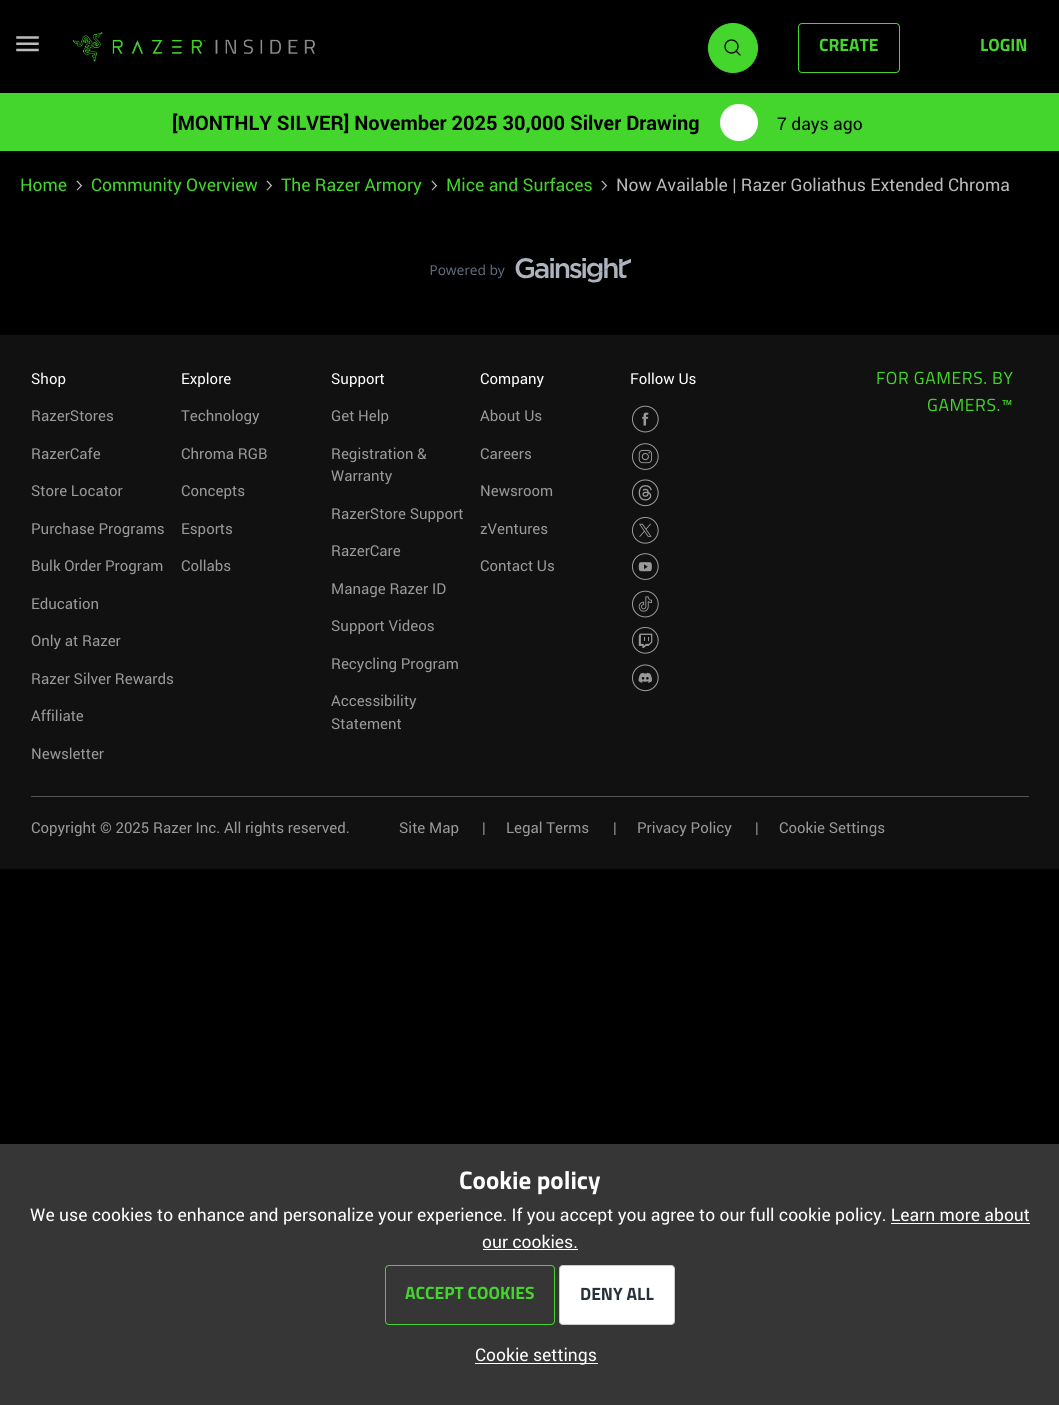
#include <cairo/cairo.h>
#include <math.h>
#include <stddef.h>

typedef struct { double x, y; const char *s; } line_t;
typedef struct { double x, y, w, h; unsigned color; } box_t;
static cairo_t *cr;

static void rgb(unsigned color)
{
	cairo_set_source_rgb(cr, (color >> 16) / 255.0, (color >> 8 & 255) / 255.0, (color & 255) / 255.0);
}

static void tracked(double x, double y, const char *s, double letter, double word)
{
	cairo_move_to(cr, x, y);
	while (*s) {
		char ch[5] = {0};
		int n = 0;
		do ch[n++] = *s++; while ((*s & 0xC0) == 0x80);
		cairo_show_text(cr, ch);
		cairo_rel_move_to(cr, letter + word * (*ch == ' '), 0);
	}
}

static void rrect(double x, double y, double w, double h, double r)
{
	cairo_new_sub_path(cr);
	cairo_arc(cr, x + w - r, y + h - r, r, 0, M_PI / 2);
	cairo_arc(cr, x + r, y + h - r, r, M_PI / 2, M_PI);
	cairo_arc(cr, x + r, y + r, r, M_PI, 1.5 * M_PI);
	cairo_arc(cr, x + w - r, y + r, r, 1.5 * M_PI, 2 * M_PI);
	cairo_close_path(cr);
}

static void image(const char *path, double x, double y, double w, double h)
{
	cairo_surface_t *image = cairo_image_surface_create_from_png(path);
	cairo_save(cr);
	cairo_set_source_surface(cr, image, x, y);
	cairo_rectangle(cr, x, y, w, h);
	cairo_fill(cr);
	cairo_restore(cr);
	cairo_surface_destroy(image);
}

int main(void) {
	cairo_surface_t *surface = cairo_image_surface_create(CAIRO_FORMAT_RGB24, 1059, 1405);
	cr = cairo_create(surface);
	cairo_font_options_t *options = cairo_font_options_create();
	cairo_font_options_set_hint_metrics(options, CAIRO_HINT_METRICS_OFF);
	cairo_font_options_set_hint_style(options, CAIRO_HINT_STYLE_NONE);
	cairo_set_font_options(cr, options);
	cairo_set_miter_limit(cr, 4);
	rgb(0x000000);
	cairo_paint(cr);
	image("img/1.png", 16, 36, 23, 16);
	image("img/2.png", 72, 32, 243, 30);
	rgb(0x44d62c);
	cairo_arc(cr, 733, 48, 24.5, 0, 2 * M_PI);
	cairo_fill_preserve(cr);
	rgb(0x44d62d);
	cairo_set_line_width(cr, 1);
	cairo_stroke(cr);
	cairo_arc(cr, 731.5, 46.5, 6.5, 0, 2 * M_PI);
	rgb(0x000000);
	cairo_set_line_width(cr, 1.3);
	cairo_stroke(cr);
	cairo_new_path(cr);
	cairo_move_to(cr, 736, 51);
	cairo_line_to(cr, 740, 55);
	cairo_set_line_cap(cr, CAIRO_LINE_CAP_ROUND);
	cairo_stroke(cr);
	rrect(798.5, 23.5, 101, 49, 3.5);
	rgb(0x44d62c);
	cairo_set_line_width(cr, 1);
	cairo_set_line_cap(cr, CAIRO_LINE_CAP_BUTT);
	cairo_stroke(cr);
	cairo_rectangle(cr, 0, 93, 1059, 58);
	cairo_fill(cr);
	rgb(0xffffff);
	rrect(720, 104, 38, 37, 18.5);
	cairo_fill(cr);
	image("img/3.png", 76, 180, 7, 11);
	image("img/3.png", 266, 180, 7, 11);
	image("img/3.png", 431, 180, 7, 11);
	image("img/3.png", 601, 180, 7, 11);
	image("img/4.png", 430, 258, 201, 25);
	rgb(0x111111);
	cairo_rectangle(cr, 0, 335, 1059, 534);
	cairo_fill(cr);
	image("img/5.png", 631, 405, 28, 28);
	image("img/6.png", 631, 443, 28, 27);
	image("img/7.png", 631, 479, 28, 28);
	image("img/8.png", 631, 516, 28, 28);
	image("img/9.png", 631, 553, 28, 27);
	image("img/10.png", 631, 590, 28, 28);
	image("img/11.png", 631, 626, 28, 28);
	image("img/12.png", 631, 664, 28, 28);
	{
		static const box_t items[] = {
			{31, 796, 998, 1, 0x555555},
			{0, 1144, 1059, 261, 0x363636},
			{891, 1223, 139, 1, 0xffffff},
			{483, 1249, 95, 1, 0xffffff},
		};
		for (size_t i = 0; i < sizeof items / sizeof *items; i++) {
			rgb(items[i].color);
			cairo_rectangle(cr, items[i].x, items[i].y, items[i].w, items[i].h);
			cairo_fill(cr);
		}
	}
	rrect(385.5, 1265.5, 169, 59, 3.5);
	rgb(0x44d62c);
	cairo_stroke(cr);
	rgb(0xffffff);
	rrect(559, 1265, 116, 60, 4);
	cairo_fill(cr);
	rrect(559.5, 1265.5, 115, 59, 3.5);
	cairo_set_source_rgba(cr, 0, 0, 0, 0.2);
	cairo_stroke(cr);
	rgb(0xffffff);
	cairo_rectangle(cr, 475, 1363, 123, 1);
	cairo_fill(cr);
	cairo_select_font_face(cr, "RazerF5", CAIRO_FONT_SLANT_NORMAL, CAIRO_FONT_WEIGHT_BOLD);
	cairo_set_font_size(cr, 17.5);
	rgb(0x44d62c);
	cairo_move_to(cr, 819, 51);
	cairo_show_text(cr, "CREATE");
	cairo_move_to(cr, 980, 51);
	cairo_show_text(cr, "LOGIN");
	cairo_select_font_face(cr, "Roboto", CAIRO_FONT_SLANT_NORMAL, CAIRO_FONT_WEIGHT_BOLD);
	cairo_set_font_size(cr, 20);
	rgb(0x000000);
	cairo_move_to(cr, 172, 130);
	cairo_show_text(cr, "[MONTHLY SILVER] November 2025 30,000 Silver Drawing");
	cairo_select_font_face(cr, "Roboto", CAIRO_FONT_SLANT_NORMAL, CAIRO_FONT_WEIGHT_NORMAL);
	cairo_set_font_size(cr, 17.5);
	cairo_move_to(cr, 777, 130);
	cairo_show_text(cr, "7 days ago");
	rgb(0x44d62c);
	{
		static const line_t items[] = {
			{20, 191, "Home"},
			{91, 191, "Community Overview"},
			{281, 191, "The Razer Armory"},
			{446, 191, "Mice and Surfaces"},
		};
		for (size_t i = 0; i < sizeof items / sizeof *items; i++) {
			cairo_move_to(cr, items[i].x, items[i].y);
			cairo_show_text(cr, items[i].s);
		}
	}
	rgb(0xbbbbbb);
	cairo_move_to(cr, 616, 191);
	cairo_show_text(cr, "Now Available | Razer Goliathus Extended Chroma");
	cairo_set_font_size(cr, 15);
	rgb(0xffffff);
	cairo_move_to(cr, 31, 384);
	cairo_show_text(cr, "Shop");
	rgb(0x999999);
	{
		static const line_t items[] = {
			{31, 421, "RazerStores"},
			{31, 459, "RazerCafe"},
			{31, 496, "Store Locator"},
			{31, 534, "Purchase Programs"},
			{31, 571, "Bulk Order Program"},
			{31, 609, "Education"},
			{31, 646, "Only at Razer"},
			{31, 684, "Razer Silver Rewards"},
			{31, 721, "Affiliate"},
			{31, 759, "Newsletter"},
		};
		for (size_t i = 0; i < sizeof items / sizeof *items; i++) {
			cairo_move_to(cr, items[i].x, items[i].y);
			cairo_show_text(cr, items[i].s);
		}
	}
	rgb(0xffffff);
	cairo_move_to(cr, 181, 384);
	cairo_show_text(cr, "Explore");
	rgb(0x999999);
	{
		static const line_t items[] = {
			{181, 421, "Technology"},
			{181, 459, "Chroma RGB"},
			{181, 496, "Concepts"},
			{181, 534, "Esports"},
			{181, 571, "Collabs"},
		};
		for (size_t i = 0; i < sizeof items / sizeof *items; i++) {
			cairo_move_to(cr, items[i].x, items[i].y);
			cairo_show_text(cr, items[i].s);
		}
	}
	rgb(0xffffff);
	cairo_move_to(cr, 331, 384);
	cairo_show_text(cr, "Support");
	rgb(0x999999);
	{
		static const line_t items[] = {
			{331, 421, "Get Help"},
			{331, 459, "Registration &"},
			{331, 481, "Warranty"},
			{331, 519, "RazerStore Support"},
			{331, 556, "RazerCare"},
			{331, 594, "Manage Razer ID"},
			{331, 631, "Support Videos"},
			{331, 669, "Recycling Program"},
			{331, 706, "Accessibility"},
			{331, 729, "Statement"},
		};
		for (size_t i = 0; i < sizeof items / sizeof *items; i++) {
			cairo_move_to(cr, items[i].x, items[i].y);
			cairo_show_text(cr, items[i].s);
		}
	}
	rgb(0xffffff);
	cairo_move_to(cr, 480, 384);
	cairo_show_text(cr, "Company");
	rgb(0x999999);
	{
		static const line_t items[] = {
			{480, 421, "About Us"},
			{480, 459, "Careers"},
			{480, 496, "Newsroom"},
			{480, 534, "zVentures"},
			{480, 571, "Contact Us"},
		};
		for (size_t i = 0; i < sizeof items / sizeof *items; i++) {
			cairo_move_to(cr, items[i].x, items[i].y);
			cairo_show_text(cr, items[i].s);
		}
	}
	rgb(0xffffff);
	cairo_move_to(cr, 630, 384);
	cairo_show_text(cr, "Follow Us");
	cairo_select_font_face(cr, "RazerF5", CAIRO_FONT_SLANT_NORMAL, CAIRO_FONT_WEIGHT_NORMAL);
	cairo_set_font_size(cr, 17.5);
	rgb(0x44d62c);
	tracked(876, 384, "FOR GAMERS. BY", 0.6, 0);
	tracked(927, 411, "GAMERS.™", 0.6, 0);
	cairo_select_font_face(cr, "Roboto", CAIRO_FONT_SLANT_NORMAL, CAIRO_FONT_WEIGHT_NORMAL);
	cairo_set_font_size(cr, 15);
	rgb(0x999999);
	{
		static const line_t items[] = {
			{31, 833, "Copyright © 2025 Razer Inc. All rights reserved."},
			{399, 833, "Site Map"},
			{482, 833, "|"},
			{506, 833, "Legal Terms"},
			{613, 833, "|"},
			{637, 833, "Privacy Policy"},
			{755, 833, "|"},
			{779, 833, "Cookie Settings"},
		};
		for (size_t i = 0; i < sizeof items / sizeof *items; i++) {
			cairo_move_to(cr, items[i].x, items[i].y);
			cairo_show_text(cr, items[i].s);
		}
	}
	cairo_select_font_face(cr, "RazerF5", CAIRO_FONT_SLANT_NORMAL, CAIRO_FONT_WEIGHT_BOLD);
	cairo_set_font_size(cr, 25);
	rgb(0xffffff);
	cairo_move_to(cr, 459, 1189);
	cairo_show_text(cr, "Cookie policy");
	cairo_select_font_face(cr, "Roboto", CAIRO_FONT_SLANT_NORMAL, CAIRO_FONT_WEIGHT_NORMAL);
	cairo_set_font_size(cr, 17.5);
	cairo_move_to(cr, 30, 1221);
	cairo_show_text(cr, "We use cookies to enhance and personalize your experience. If you accept you agree to our full cookie policy. Learn more about");
	cairo_move_to(cr, 482, 1248);
	cairo_show_text(cr, "our cookies.");
	cairo_select_font_face(cr, "RazerF5", CAIRO_FONT_SLANT_NORMAL, CAIRO_FONT_WEIGHT_BOLD);
	rgb(0x44d62c);
	cairo_move_to(cr, 405, 1299);
	cairo_show_text(cr, "ACCEPT COOKIES");
	rgb(0x25313b);
	cairo_move_to(cr, 580, 1300);
	cairo_show_text(cr, "DENY ALL");
	cairo_select_font_face(cr, "Roboto", CAIRO_FONT_SLANT_NORMAL, CAIRO_FONT_WEIGHT_NORMAL);
	rgb(0xffffff);
	cairo_move_to(cr, 475, 1361);
	cairo_show_text(cr, "Cookie settings");
	cairo_surface_write_to_png(surface, "page.png");
	cairo_font_options_destroy(options);
	cairo_destroy(cr);
	cairo_surface_destroy(surface);
	return 0;
}
